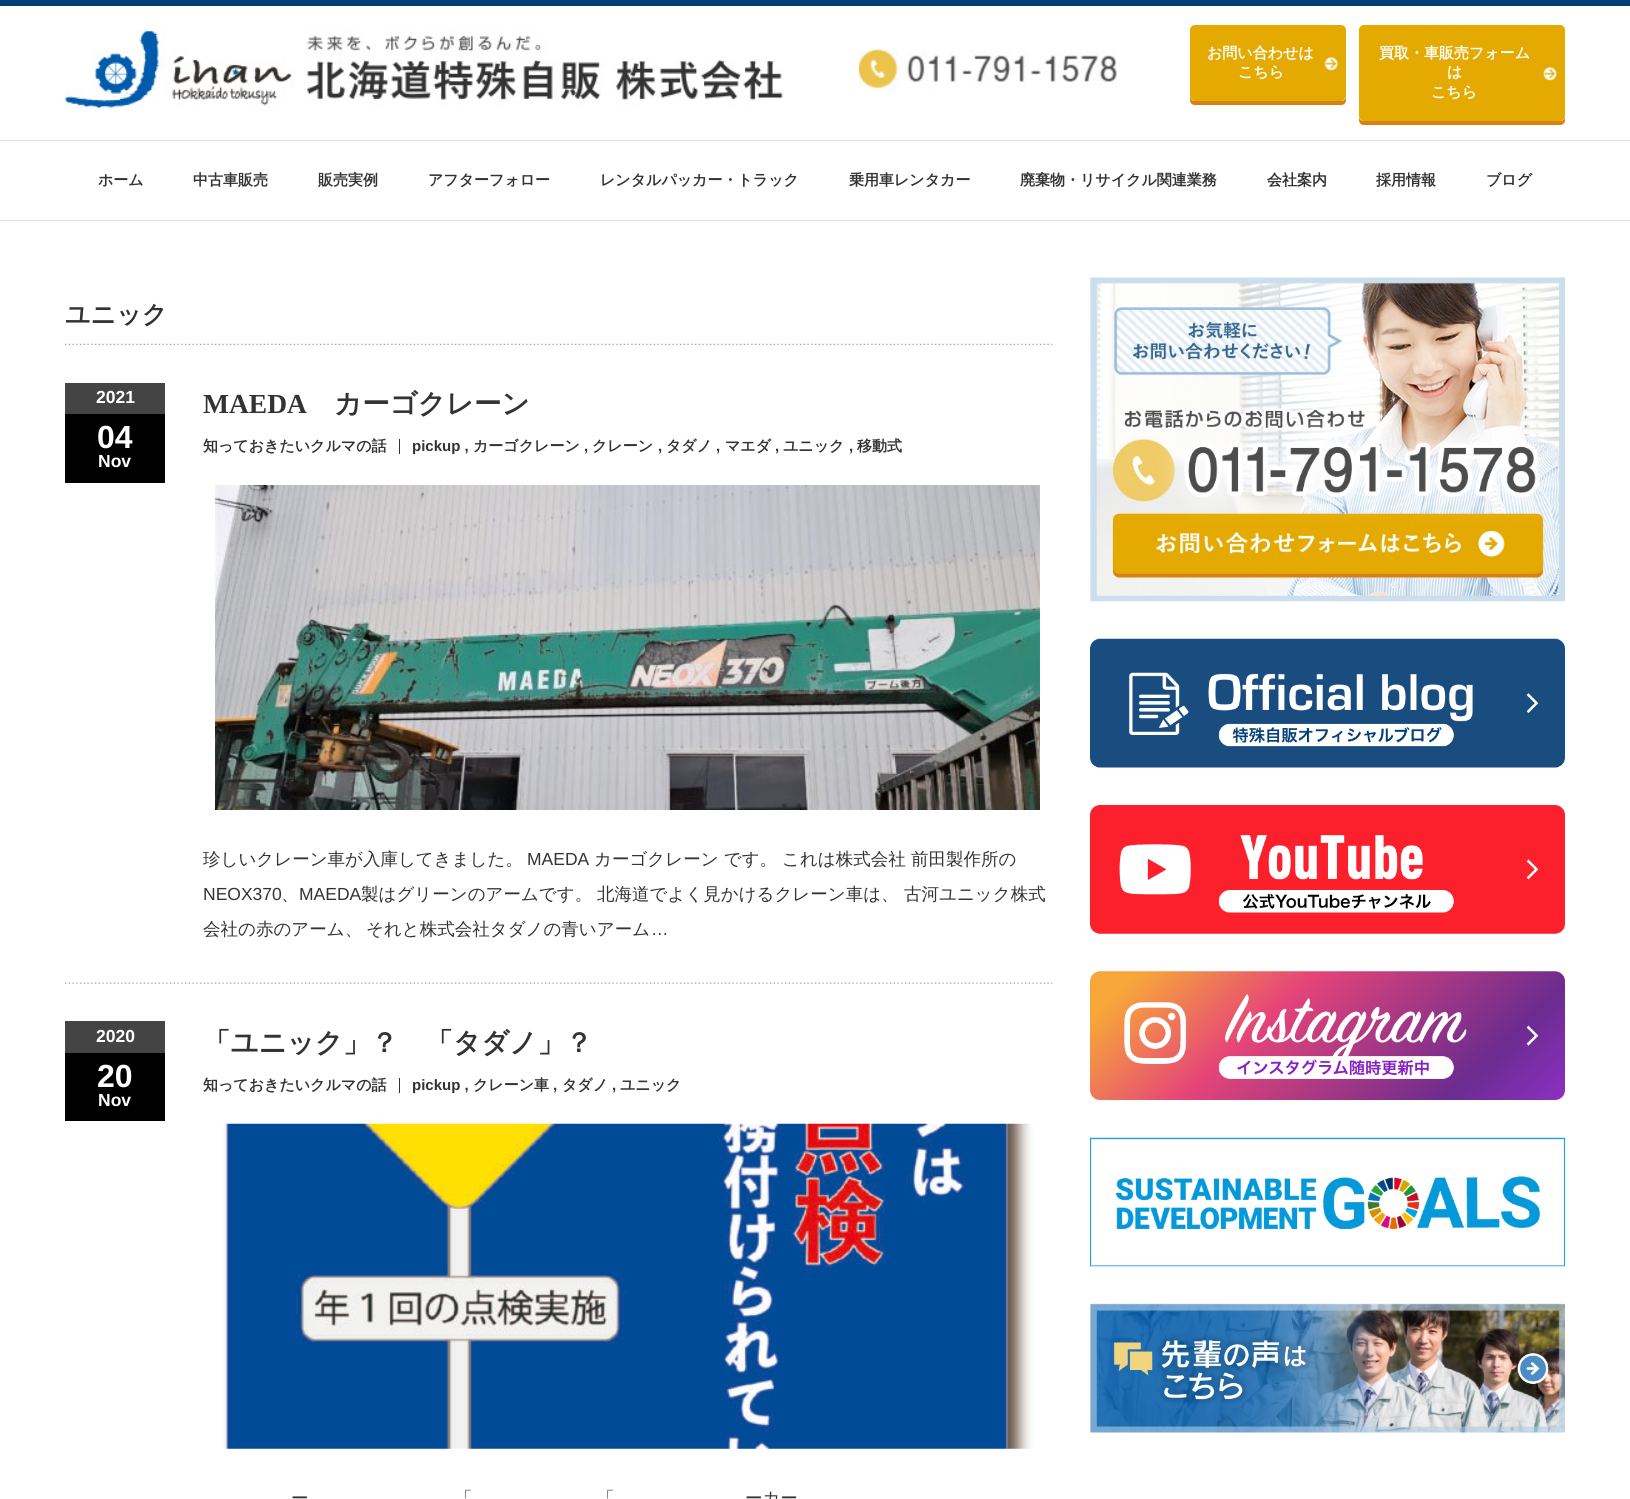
#include <cairo/cairo.h>
#include <math.h>
#include <stddef.h>

typedef struct { double x, y; const char *s; } line_t;
typedef struct { double x, y, w, h; unsigned color; } box_t;
static cairo_t *cr;

static void rgb(unsigned color)
{
	cairo_set_source_rgb(cr, (color >> 16) / 255.0, (color >> 8 & 255) / 255.0, (color & 255) / 255.0);
}

static void rrect(double x, double y, double w, double h, double r)
{
	cairo_new_sub_path(cr);
	cairo_arc(cr, x + w - r, y + h - r, r, 0, M_PI / 2);
	cairo_arc(cr, x + r, y + h - r, r, M_PI / 2, M_PI);
	cairo_arc(cr, x + r, y + r, r, M_PI, 1.5 * M_PI);
	cairo_arc(cr, x + w - r, y + r, r, 1.5 * M_PI, 2 * M_PI);
	cairo_close_path(cr);
}

static void image(const char *path, double x, double y, double w, double h)
{
	cairo_surface_t *image = cairo_image_surface_create_from_png(path);
	cairo_save(cr);
	cairo_set_source_surface(cr, image, x, y);
	cairo_rectangle(cr, x, y, w, h);
	cairo_fill(cr);
	cairo_restore(cr);
	cairo_surface_destroy(image);
}

int main(void) {
	cairo_surface_t *surface = cairo_image_surface_create(CAIRO_FORMAT_RGB24, 1630, 1499);
	cr = cairo_create(surface);
	cairo_font_options_t *options = cairo_font_options_create();
	cairo_font_options_set_hint_metrics(options, CAIRO_HINT_METRICS_OFF);
	cairo_font_options_set_hint_style(options, CAIRO_HINT_STYLE_NONE);
	cairo_set_font_options(cr, options);
	cairo_set_miter_limit(cr, 4);
	rgb(0xffffff);
	cairo_paint(cr);
	rgb(0x003e75);
	cairo_rectangle(cr, 0, 0, 1630, 6);
	cairo_fill(cr);
	rgb(0xdddddd);
	cairo_rectangle(cr, 0, 220, 1630, 1);
	cairo_fill(cr);
	image("img/1.png", 65, 29, 718, 80);
	image("img/2.png", 859, 49, 258, 40);
	rgb(0xd78114);
	cairo_new_path(cr);
	cairo_move_to(cr, 1190, 96);
	cairo_line_to(cr, 1190, 100);
	cairo_curve_to(cr, 1190, 103, 1192, 105, 1195, 105);
	cairo_line_to(cr, 1341, 105);
	cairo_curve_to(cr, 1344, 105, 1346, 103, 1346, 100);
	cairo_line_to(cr, 1346, 98);
	cairo_curve_to(cr, 1345, 100, 1343, 101, 1341, 101);
	cairo_line_to(cr, 1195, 101);
	cairo_curve_to(cr, 1192, 101, 1190, 99, 1190, 96);
	cairo_close_path(cr);
	cairo_fill(cr);
	rgb(0xe4aa01);
	rrect(1190, 25, 156, 76, 5);
	cairo_fill(cr);
	image("img/3.png", 1324, 56, 14, 15);
	rgb(0xd78114);
	cairo_new_path(cr);
	cairo_move_to(cr, 1359, 118);
	cairo_line_to(cr, 1359, 120);
	cairo_curve_to(cr, 1359, 123, 1361, 125, 1364, 125);
	cairo_line_to(cr, 1560, 125);
	cairo_curve_to(cr, 1563, 125, 1565, 123, 1565, 120);
	cairo_line_to(cr, 1565, 116);
	cairo_curve_to(cr, 1565, 119, 1563, 121, 1560, 121);
	cairo_line_to(cr, 1364, 121);
	cairo_curve_to(cr, 1362, 121, 1360, 120, 1359, 118);
	cairo_close_path(cr);
	cairo_fill(cr);
	rgb(0xe4aa01);
	rrect(1359, 25, 206, 96, 5);
	cairo_fill(cr);
	image("img/4.png", 1543, 66, 14, 15);
	rgb(0xdddddd);
	cairo_rectangle(cr, 0, 140, 1630, 1);
	cairo_fill(cr);
	image("img/5.png", 65, 343, 988, 2);
	image("img/6.png", 65, 982, 988, 2);
	{
		static const box_t items[] = {
			{65, 414, 100, 69, 0x000000},
			{65, 383, 100, 31, 0x444444},
			{399, 439, 1, 15, 0x333333},
		};
		for (size_t i = 0; i < sizeof items / sizeof *items; i++) {
			rgb(items[i].color);
			cairo_rectangle(cr, items[i].x, items[i].y, items[i].w, items[i].h);
			cairo_fill(cr);
		}
	}
	image("img/7.png", 215, 485, 825, 325);
	{
		static const box_t items[] = {
			{65, 1053, 100, 68, 0x000000},
			{65, 1021, 100, 32, 0x444444},
			{399, 1078, 1, 15, 0x333333},
		};
		for (size_t i = 0; i < sizeof items / sizeof *items; i++) {
			rgb(items[i].color);
			cairo_rectangle(cr, items[i].x, items[i].y, items[i].w, items[i].h);
			cairo_fill(cr);
		}
	}
	image("img/8.png", 223, 1123, 810, 326);
	image("img/9.png", 1090, 277, 475, 325);
	image("img/10.png", 1090, 638, 475, 130);
	image("img/11.png", 1090, 805, 475, 129);
	image("img/12.png", 1090, 971, 475, 129);
	image("img/13.png", 1090, 1137, 475, 130);
	image("img/14.png", 1090, 1303, 475, 130);
	cairo_select_font_face(cr, "WenQuanYi Zen Hei", CAIRO_FONT_SLANT_NORMAL, CAIRO_FONT_WEIGHT_BOLD);
	cairo_set_font_size(cr, 15);
	rgb(0xffffff);
	{
		static const line_t items[] = {
			{1207, 58, "お問い合わせは"},
			{1238, 77, "こちら"},
			{1379, 58, "買取・車販売フォーム"},
			{1447, 77, "は"},
			{1431, 97, "こちら"},
		};
		for (size_t i = 0; i < sizeof items / sizeof *items; i++) {
			cairo_move_to(cr, items[i].x, items[i].y);
			cairo_show_text(cr, items[i].s);
		}
	}
	rgb(0x333333);
	{
		static const line_t items[] = {
			{98, 185, "ホーム"},
			{193, 185, "中古車販売"},
			{318, 185, "販売実例"},
			{428, 185, "アフターフォロー"},
			{600, 185, "レンタルパッカー・トラック"},
			{849, 185, "乗用車レンタカー"},
			{1020, 185, "廃棄物・リサイクル関連業務"},
			{1267, 185, "会社案内"},
			{1376, 185, "採用情報"},
			{1486, 185, "ブログ"},
		};
		for (size_t i = 0; i < sizeof items / sizeof *items; i++) {
			cairo_move_to(cr, items[i].x, items[i].y);
			cairo_show_text(cr, items[i].s);
		}
	}
	cairo_set_font_size(cr, 25);
	cairo_move_to(cr, 65, 323);
	cairo_show_text(cr, "ユニック");
	cairo_select_font_face(cr, "Liberation Sans", CAIRO_FONT_SLANT_NORMAL, CAIRO_FONT_WEIGHT_BOLD);
	cairo_set_font_size(cr, 17.5);
	rgb(0xffffff);
	cairo_move_to(cr, 96, 403);
	cairo_show_text(cr, "2021");
	cairo_set_font_size(cr, 32);
	cairo_move_to(cr, 97, 448);
	cairo_show_text(cr, "04");
	cairo_set_font_size(cr, 17.5);
	cairo_move_to(cr, 98, 467);
	cairo_show_text(cr, "Nov");
	cairo_select_font_face(cr, "Liberation Serif", CAIRO_FONT_SLANT_NORMAL, CAIRO_FONT_WEIGHT_BOLD);
	cairo_set_font_size(cr, 27.5);
	rgb(0x333333);
	cairo_move_to(cr, 203, 413);
	cairo_show_text(cr, "MAEDA");
	cairo_select_font_face(cr, "WenQuanYi Zen Hei", CAIRO_FONT_SLANT_NORMAL, CAIRO_FONT_WEIGHT_BOLD);
	cairo_move_to(cr, 334, 413);
	cairo_show_text(cr, "カーゴクレーン");
	cairo_set_font_size(cr, 15);
	cairo_move_to(cr, 203, 451);
	cairo_show_text(cr, "知っておきたいクルマの話");
	cairo_select_font_face(cr, "Liberation Sans", CAIRO_FONT_SLANT_NORMAL, CAIRO_FONT_WEIGHT_BOLD);
	cairo_move_to(cr, 412, 451);
	cairo_show_text(cr, "pickup ,");
	cairo_select_font_face(cr, "WenQuanYi Zen Hei", CAIRO_FONT_SLANT_NORMAL, CAIRO_FONT_WEIGHT_BOLD);
	cairo_move_to(cr, 473, 451);
	cairo_show_text(cr, "カーゴクレーン");
	cairo_select_font_face(cr, "Liberation Sans", CAIRO_FONT_SLANT_NORMAL, CAIRO_FONT_WEIGHT_BOLD);
	cairo_move_to(cr, 584, 451);
	cairo_show_text(cr, ",");
	cairo_select_font_face(cr, "WenQuanYi Zen Hei", CAIRO_FONT_SLANT_NORMAL, CAIRO_FONT_WEIGHT_BOLD);
	cairo_move_to(cr, 592, 451);
	cairo_show_text(cr, "クレーン");
	cairo_select_font_face(cr, "Liberation Sans", CAIRO_FONT_SLANT_NORMAL, CAIRO_FONT_WEIGHT_BOLD);
	cairo_move_to(cr, 658, 451);
	cairo_show_text(cr, ",");
	cairo_select_font_face(cr, "WenQuanYi Zen Hei", CAIRO_FONT_SLANT_NORMAL, CAIRO_FONT_WEIGHT_BOLD);
	cairo_move_to(cr, 666, 451);
	cairo_show_text(cr, "タダノ");
	cairo_select_font_face(cr, "Liberation Sans", CAIRO_FONT_SLANT_NORMAL, CAIRO_FONT_WEIGHT_BOLD);
	cairo_move_to(cr, 716, 451);
	cairo_show_text(cr, ",");
	cairo_select_font_face(cr, "WenQuanYi Zen Hei", CAIRO_FONT_SLANT_NORMAL, CAIRO_FONT_WEIGHT_BOLD);
	cairo_move_to(cr, 725, 451);
	cairo_show_text(cr, "マエダ");
	cairo_select_font_face(cr, "Liberation Sans", CAIRO_FONT_SLANT_NORMAL, CAIRO_FONT_WEIGHT_BOLD);
	cairo_move_to(cr, 775, 451);
	cairo_show_text(cr, ",");
	cairo_select_font_face(cr, "WenQuanYi Zen Hei", CAIRO_FONT_SLANT_NORMAL, CAIRO_FONT_WEIGHT_BOLD);
	cairo_move_to(cr, 783, 451);
	cairo_show_text(cr, "ユニック");
	cairo_select_font_face(cr, "Liberation Sans", CAIRO_FONT_SLANT_NORMAL, CAIRO_FONT_WEIGHT_BOLD);
	cairo_move_to(cr, 849, 451);
	cairo_show_text(cr, ",");
	cairo_select_font_face(cr, "WenQuanYi Zen Hei", CAIRO_FONT_SLANT_NORMAL, CAIRO_FONT_WEIGHT_BOLD);
	cairo_move_to(cr, 857, 451);
	cairo_show_text(cr, "移動式");
	cairo_select_font_face(cr, "WenQuanYi Zen Hei Medium", CAIRO_FONT_SLANT_NORMAL, CAIRO_FONT_WEIGHT_NORMAL);
	cairo_set_font_size(cr, 17.5);
	cairo_move_to(cr, 203, 865);
	cairo_show_text(cr, "珍しいクレーン車が入庫してきました。");
	cairo_select_font_face(cr, "Liberation Sans", CAIRO_FONT_SLANT_NORMAL, CAIRO_FONT_WEIGHT_NORMAL);
	cairo_move_to(cr, 527, 865);
	cairo_show_text(cr, "MAEDA");
	cairo_select_font_face(cr, "WenQuanYi Zen Hei Medium", CAIRO_FONT_SLANT_NORMAL, CAIRO_FONT_WEIGHT_NORMAL);
	cairo_move_to(cr, 594, 865);
	cairo_show_text(cr, "カーゴクレーン です。");
	cairo_move_to(cr, 782, 865);
	cairo_show_text(cr, "これは株式会社 前田製作所の");
	cairo_select_font_face(cr, "Liberation Sans", CAIRO_FONT_SLANT_NORMAL, CAIRO_FONT_WEIGHT_NORMAL);
	cairo_move_to(cr, 203, 900);
	cairo_show_text(cr, "NEOX370");
	cairo_move_to(cr, 299, 900);
	cairo_show_text(cr, "MAEDA");
	cairo_select_font_face(cr, "WenQuanYi Zen Hei Medium", CAIRO_FONT_SLANT_NORMAL, CAIRO_FONT_WEIGHT_NORMAL);
	{
		static const line_t items[] = {
			{361, 900, "製はグリーンのアームです。"},
			{597, 900, "北海道でよく見かけるクレーン車は、"},
			{904, 900, "古河ユニック株式"},
			{281, 900, "、"},
			{203, 935, "会社の赤のアーム、"},
			{366, 935, "それと株式会社タダノの青いアーム"},
		};
		for (size_t i = 0; i < sizeof items / sizeof *items; i++) {
			cairo_move_to(cr, items[i].x, items[i].y);
			cairo_show_text(cr, items[i].s);
		}
	}
	cairo_select_font_face(cr, "Liberation Sans", CAIRO_FONT_SLANT_NORMAL, CAIRO_FONT_WEIGHT_NORMAL);
	cairo_move_to(cr, 651, 935);
	cairo_show_text(cr, "…");
	cairo_select_font_face(cr, "Liberation Sans", CAIRO_FONT_SLANT_NORMAL, CAIRO_FONT_WEIGHT_BOLD);
	rgb(0xffffff);
	cairo_move_to(cr, 96, 1042);
	cairo_show_text(cr, "2020");
	cairo_set_font_size(cr, 32);
	cairo_move_to(cr, 97, 1087);
	cairo_show_text(cr, "20");
	cairo_set_font_size(cr, 17.5);
	cairo_move_to(cr, 98, 1106);
	cairo_show_text(cr, "Nov");
	cairo_select_font_face(cr, "WenQuanYi Zen Hei", CAIRO_FONT_SLANT_NORMAL, CAIRO_FONT_WEIGHT_BOLD);
	cairo_set_font_size(cr, 27.5);
	rgb(0x333333);
	cairo_move_to(cr, 203, 1052);
	cairo_show_text(cr, "「ユニック」？　「タダノ」？");
	cairo_set_font_size(cr, 15);
	cairo_move_to(cr, 203, 1090);
	cairo_show_text(cr, "知っておきたいクルマの話");
	cairo_select_font_face(cr, "Liberation Sans", CAIRO_FONT_SLANT_NORMAL, CAIRO_FONT_WEIGHT_BOLD);
	cairo_move_to(cr, 412, 1090);
	cairo_show_text(cr, "pickup ,");
	cairo_select_font_face(cr, "WenQuanYi Zen Hei", CAIRO_FONT_SLANT_NORMAL, CAIRO_FONT_WEIGHT_BOLD);
	cairo_move_to(cr, 473, 1090);
	cairo_show_text(cr, "クレーン車");
	cairo_select_font_face(cr, "Liberation Sans", CAIRO_FONT_SLANT_NORMAL, CAIRO_FONT_WEIGHT_BOLD);
	cairo_move_to(cr, 553, 1090);
	cairo_show_text(cr, ",");
	cairo_select_font_face(cr, "WenQuanYi Zen Hei", CAIRO_FONT_SLANT_NORMAL, CAIRO_FONT_WEIGHT_BOLD);
	cairo_move_to(cr, 562, 1090);
	cairo_show_text(cr, "タダノ");
	cairo_select_font_face(cr, "Liberation Sans", CAIRO_FONT_SLANT_NORMAL, CAIRO_FONT_WEIGHT_BOLD);
	cairo_move_to(cr, 612, 1090);
	cairo_show_text(cr, ",");
	cairo_select_font_face(cr, "WenQuanYi Zen Hei", CAIRO_FONT_SLANT_NORMAL, CAIRO_FONT_WEIGHT_BOLD);
	cairo_move_to(cr, 620, 1090);
	cairo_show_text(cr, "ユニック");
	cairo_select_font_face(cr, "WenQuanYi Zen Hei Medium", CAIRO_FONT_SLANT_NORMAL, CAIRO_FONT_WEIGHT_NORMAL);
	cairo_set_font_size(cr, 17.5);
	{
		static const line_t items[] = {
			{291, 1504, "ー"},
			{455, 1504, "「"},
			{597, 1504, "「"},
			{745, 1504, "ーカー"},
		};
		for (size_t i = 0; i < sizeof items / sizeof *items; i++) {
			cairo_move_to(cr, items[i].x, items[i].y);
			cairo_show_text(cr, items[i].s);
		}
	}
	cairo_surface_write_to_png(surface, "page.png");
	cairo_font_options_destroy(options);
	cairo_destroy(cr);
	cairo_surface_destroy(surface);
	return 0;
}
